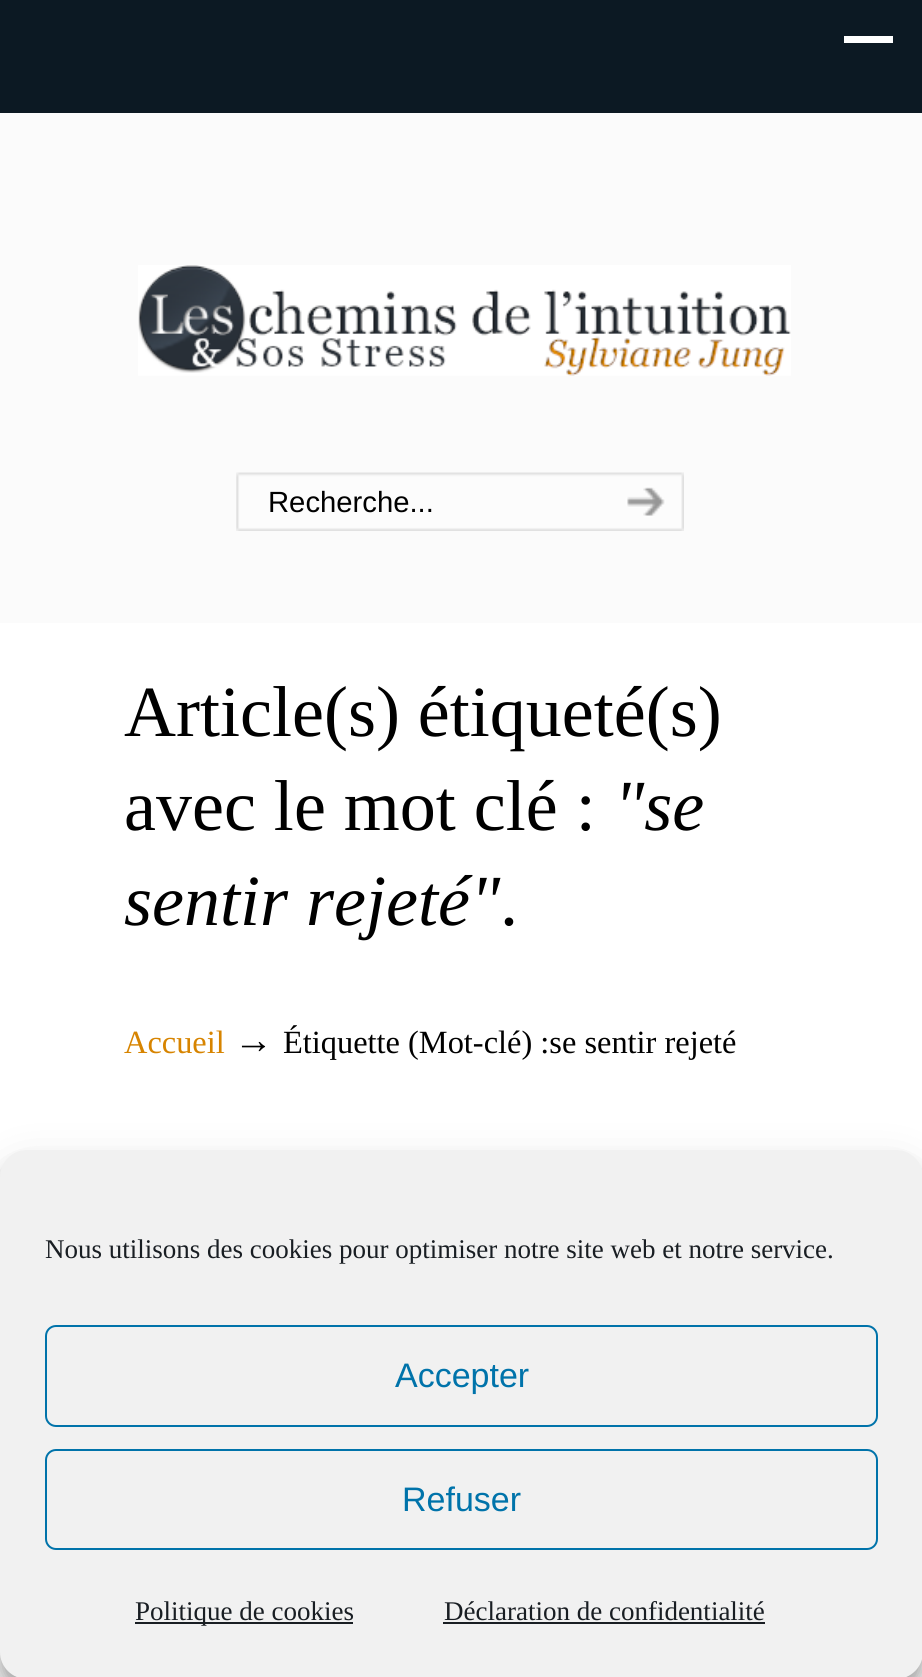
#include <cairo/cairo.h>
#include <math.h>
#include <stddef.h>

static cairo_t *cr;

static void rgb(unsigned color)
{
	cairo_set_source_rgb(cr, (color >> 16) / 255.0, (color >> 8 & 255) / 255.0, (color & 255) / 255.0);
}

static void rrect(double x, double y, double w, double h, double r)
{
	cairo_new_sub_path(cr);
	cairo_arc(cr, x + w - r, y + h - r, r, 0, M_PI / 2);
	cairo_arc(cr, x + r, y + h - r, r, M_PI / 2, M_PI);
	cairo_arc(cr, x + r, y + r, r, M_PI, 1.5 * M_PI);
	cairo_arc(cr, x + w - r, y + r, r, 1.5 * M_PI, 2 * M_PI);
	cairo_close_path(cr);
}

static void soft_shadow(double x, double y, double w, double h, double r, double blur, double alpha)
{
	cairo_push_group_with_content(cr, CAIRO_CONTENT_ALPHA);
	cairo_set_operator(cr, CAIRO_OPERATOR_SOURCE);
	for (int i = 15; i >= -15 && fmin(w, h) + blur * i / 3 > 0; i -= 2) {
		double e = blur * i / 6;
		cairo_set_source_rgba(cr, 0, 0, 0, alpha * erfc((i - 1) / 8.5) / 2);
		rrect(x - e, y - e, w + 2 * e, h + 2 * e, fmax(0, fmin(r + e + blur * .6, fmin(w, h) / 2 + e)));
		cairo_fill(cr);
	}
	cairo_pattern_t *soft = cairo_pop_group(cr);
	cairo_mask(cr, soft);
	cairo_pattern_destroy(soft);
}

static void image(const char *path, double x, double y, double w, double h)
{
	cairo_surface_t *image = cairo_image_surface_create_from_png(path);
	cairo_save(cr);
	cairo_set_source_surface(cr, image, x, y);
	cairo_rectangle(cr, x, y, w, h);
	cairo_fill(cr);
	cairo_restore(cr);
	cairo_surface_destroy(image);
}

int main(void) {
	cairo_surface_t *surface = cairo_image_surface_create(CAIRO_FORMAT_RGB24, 922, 1677);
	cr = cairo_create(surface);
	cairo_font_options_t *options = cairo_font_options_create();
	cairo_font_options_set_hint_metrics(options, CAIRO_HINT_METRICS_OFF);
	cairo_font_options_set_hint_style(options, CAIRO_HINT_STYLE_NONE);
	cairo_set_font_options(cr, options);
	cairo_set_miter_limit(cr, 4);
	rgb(0xfbfbfb);
	cairo_paint(cr);
	rgb(0x0c1923);
	cairo_rectangle(cr, 0, 0, 922, 113);
	cairo_fill(cr);
	rgb(0xffffff);
	cairo_rectangle(cr, 844, 36, 49, 7);
	cairo_fill(cr);
	image("img/1.png", 138, 265, 653, 111);
	image("img/2.png", 236, 472, 358, 59);
	image("img/3.png", 594, 472, 90, 59);
	cairo_rectangle(cr, 0, 623, 922, 1054);
	cairo_fill(cr);
	rgb(0x000000);
	soft_shadow(0, 1163, 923, 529, 27, 7, 0.23);
	soft_shadow(0, 1172, 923, 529, 27, 22.5, 0.19);
	rgb(0xf1f1f1);
	rrect(0, 1150, 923, 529, 27);
	cairo_fill(cr);
	rrect(46, 1326, 831, 100, 10);
	rgb(0x0073aa);
	cairo_stroke(cr);
	rrect(46, 1450, 831, 99, 10);
	cairo_stroke(cr);
	rgb(0x191e23);
	cairo_rectangle(cr, 135, 1622, 218, 2);
	cairo_fill(cr);
	cairo_rectangle(cr, 443, 1622, 322, 2);
	cairo_fill(cr);
	cairo_select_font_face(cr, "Liberation Sans", CAIRO_FONT_SLANT_NORMAL, CAIRO_FONT_WEIGHT_NORMAL);
	cairo_set_font_size(cr, 29.25);
	rgb(0x000000);
	cairo_move_to(cr, 268, 512);
	cairo_show_text(cr, "Recherche...");
	cairo_select_font_face(cr, "Liberation Serif", CAIRO_FONT_SLANT_NORMAL, CAIRO_FONT_WEIGHT_NORMAL);
	cairo_set_font_size(cr, 72);
	cairo_move_to(cr, 124, 736);
	cairo_show_text(cr, "Article(s) étiqueté(s)");
	cairo_move_to(cr, 124, 830);
	cairo_show_text(cr, "avec le mot clé :");
	cairo_select_font_face(cr, "Liberation Serif", CAIRO_FONT_SLANT_ITALIC, CAIRO_FONT_WEIGHT_NORMAL);
	cairo_move_to(cr, 614, 830);
	cairo_show_text(cr, "\"se");
	cairo_move_to(cr, 124, 925);
	cairo_show_text(cr, "sentir rejeté\"");
	cairo_select_font_face(cr, "Liberation Serif", CAIRO_FONT_SLANT_NORMAL, CAIRO_FONT_WEIGHT_NORMAL);
	cairo_move_to(cr, 500, 925);
	cairo_show_text(cr, ".");
	cairo_set_font_size(cr, 32.4);
	rgb(0xd78400);
	cairo_move_to(cr, 124, 1053);
	cairo_show_text(cr, "Accueil");
	cairo_set_font_size(cr, 39);
	rgb(0x000000);
	cairo_move_to(cr, 234, 1053);
	cairo_show_text(cr, "→");
	cairo_set_font_size(cr, 32.4);
	cairo_move_to(cr, 283, 1053);
	cairo_show_text(cr, "Étiquette (Mot-clé) :se sentir rejeté");
	cairo_set_font_size(cr, 27);
	rgb(0x191e23);
	cairo_move_to(cr, 45, 1258);
	cairo_show_text(cr, "Nous utilisons des cookies pour optimiser notre site web et notre service.");
	cairo_select_font_face(cr, "Liberation Sans", CAIRO_FONT_SLANT_NORMAL, CAIRO_FONT_WEIGHT_NORMAL);
	cairo_set_font_size(cr, 34);
	rgb(0x0073aa);
	cairo_move_to(cr, 395, 1387);
	cairo_show_text(cr, "Accepter");
	cairo_move_to(cr, 402, 1511);
	cairo_show_text(cr, "Refuser");
	cairo_select_font_face(cr, "Liberation Serif", CAIRO_FONT_SLANT_NORMAL, CAIRO_FONT_WEIGHT_NORMAL);
	cairo_set_font_size(cr, 27);
	rgb(0x191e23);
	cairo_move_to(cr, 135, 1620);
	cairo_show_text(cr, "Politique de cookies");
	cairo_move_to(cr, 444, 1620);
	cairo_show_text(cr, "Déclaration de confidentialité");
	cairo_surface_write_to_png(surface, "page.png");
	cairo_font_options_destroy(options);
	cairo_destroy(cr);
	cairo_surface_destroy(surface);
	return 0;
}
